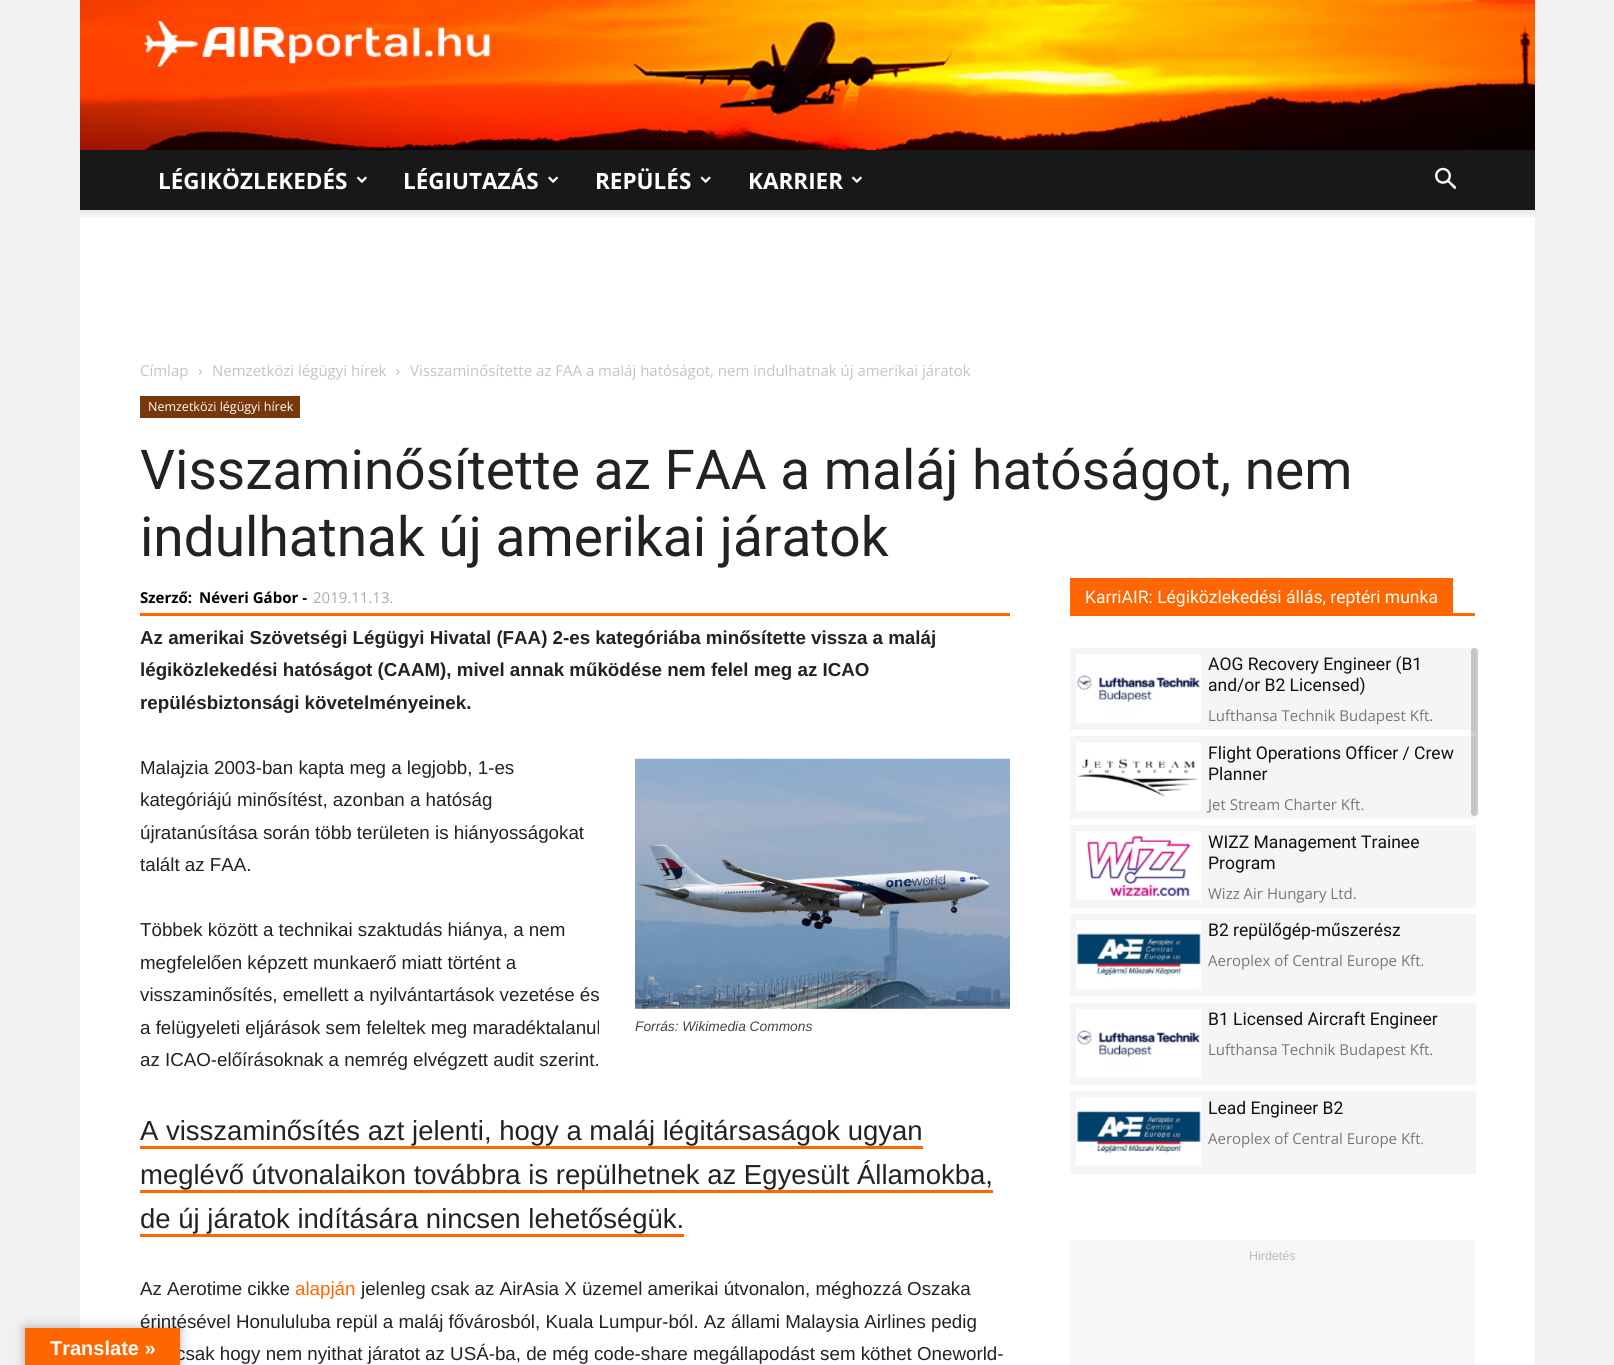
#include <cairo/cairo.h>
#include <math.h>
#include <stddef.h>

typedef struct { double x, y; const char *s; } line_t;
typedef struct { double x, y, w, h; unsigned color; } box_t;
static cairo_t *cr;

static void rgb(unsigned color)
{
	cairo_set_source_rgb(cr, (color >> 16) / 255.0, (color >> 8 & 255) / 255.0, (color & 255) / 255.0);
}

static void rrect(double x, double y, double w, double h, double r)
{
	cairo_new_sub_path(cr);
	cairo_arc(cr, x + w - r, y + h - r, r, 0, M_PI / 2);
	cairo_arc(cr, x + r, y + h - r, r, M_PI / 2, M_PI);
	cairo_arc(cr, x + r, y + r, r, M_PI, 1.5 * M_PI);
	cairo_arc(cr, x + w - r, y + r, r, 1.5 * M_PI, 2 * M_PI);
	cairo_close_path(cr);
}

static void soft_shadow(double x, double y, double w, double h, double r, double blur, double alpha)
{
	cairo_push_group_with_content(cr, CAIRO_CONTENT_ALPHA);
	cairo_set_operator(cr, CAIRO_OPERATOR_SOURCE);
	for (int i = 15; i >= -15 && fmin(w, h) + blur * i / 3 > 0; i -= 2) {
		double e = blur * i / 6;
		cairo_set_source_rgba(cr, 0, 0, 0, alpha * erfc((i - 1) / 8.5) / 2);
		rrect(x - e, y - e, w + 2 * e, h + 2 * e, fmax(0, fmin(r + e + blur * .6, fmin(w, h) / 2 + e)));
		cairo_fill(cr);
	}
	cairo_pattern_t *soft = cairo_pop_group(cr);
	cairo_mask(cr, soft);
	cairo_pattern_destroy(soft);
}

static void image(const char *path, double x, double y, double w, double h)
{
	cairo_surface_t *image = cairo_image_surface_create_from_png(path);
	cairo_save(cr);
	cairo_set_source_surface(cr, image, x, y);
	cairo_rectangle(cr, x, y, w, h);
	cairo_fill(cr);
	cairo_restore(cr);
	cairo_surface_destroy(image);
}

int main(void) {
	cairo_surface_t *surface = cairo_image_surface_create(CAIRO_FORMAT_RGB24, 1614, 1365);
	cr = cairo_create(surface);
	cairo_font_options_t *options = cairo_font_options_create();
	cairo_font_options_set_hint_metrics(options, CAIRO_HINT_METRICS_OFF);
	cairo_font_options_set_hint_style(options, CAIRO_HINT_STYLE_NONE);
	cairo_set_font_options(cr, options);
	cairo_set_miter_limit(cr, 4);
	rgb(0xf1f1f1);
	cairo_paint(cr);
	rgb(0xffffff);
	cairo_rectangle(cr, 80, 210, 1455, 1155);
	cairo_fill(cr);
	rgb(0x000000);
	soft_shadow(25, 1328, 155, 37, 0, 5.5, 0.3);
	image("img/1.png", 80, 0, 1455, 150);
	image("img/2.png", 143, 20, 348, 47);
	rgb(0x181818);
	cairo_rectangle(cr, 80, 150, 1455, 60);
	cairo_fill(cr);
	image("img/3.png", 356, 176, 11, 7);
	image("img/4.png", 548, 176, 11, 7);
	image("img/5.png", 700, 176, 11, 7);
	image("img/3.png", 851, 176, 11, 7);
	image("img/6.png", 1435, 167, 22, 22);
	image("img/7.png", 80, 210, 1455, 8);
	image("img/8.png", 198, 369, 4, 6);
	image("img/9.png", 396, 369, 4, 6);
	rgb(0x77380b);
	cairo_rectangle(cr, 140, 396, 160, 22);
	cairo_fill(cr);
	rgb(0xff6600);
	cairo_rectangle(cr, 140, 613, 870, 3);
	cairo_fill(cr);
	image("img/10.png", 635, 758, 375, 251);
	{
		static const box_t items[] = {
			{140, 1146, 783, 3, 0xff6600},
			{140, 1190, 853, 3, 0xff6600},
			{140, 1234, 544, 3, 0xff6600},
			{1070, 613, 405, 3, 0xff6600},
			{1070, 578, 383, 35, 0xff6600},
			{1070, 648, 406, 82, 0xf5f5f5},
		};
		for (size_t i = 0; i < sizeof items / sizeof *items; i++) {
			rgb(items[i].color);
			cairo_rectangle(cr, items[i].x, items[i].y, items[i].w, items[i].h);
			cairo_fill(cr);
		}
	}
	image("img/11.png", 1076, 654, 125, 69);
	cairo_rectangle(cr, 1070, 736, 406, 83);
	cairo_fill(cr);
	image("img/12.png", 1076, 742, 125, 69);
	cairo_rectangle(cr, 1070, 825, 406, 83);
	cairo_fill(cr);
	image("img/13.png", 1076, 831, 125, 69);
	cairo_rectangle(cr, 1070, 914, 406, 82);
	cairo_fill(cr);
	image("img/14.png", 1076, 920, 125, 69);
	cairo_rectangle(cr, 1070, 1003, 406, 82);
	cairo_fill(cr);
	image("img/11.png", 1076, 1009, 125, 69);
	cairo_rectangle(cr, 1070, 1091, 406, 83);
	cairo_fill(cr);
	image("img/15.png", 1076, 1097, 125, 69);
	cairo_set_source_rgba(cr, 0, 0, 0, 0.2);
	rrect(1471, 648, 7, 168, 3.5);
	cairo_fill(cr);
	rgb(0xf6f6f6);
	cairo_rectangle(cr, 1070, 1240, 405, 125);
	cairo_fill(cr);
	cairo_select_font_face(cr, "Open Sans", CAIRO_FONT_SLANT_NORMAL, CAIRO_FONT_WEIGHT_BOLD);
	cairo_set_font_size(cr, 22.5);
	rgb(0xffffff);
	{
		static const line_t items[] = {
			{158, 189, "LÉGIKÖZLEKEDÉS"},
			{403, 189, "LÉGIUTAZÁS"},
			{595, 189, "REPÜLÉS"},
			{748, 189, "KARRIER"},
		};
		for (size_t i = 0; i < sizeof items / sizeof *items; i++) {
			cairo_move_to(cr, items[i].x, items[i].y);
			cairo_show_text(cr, items[i].s);
		}
	}
	cairo_select_font_face(cr, "Open Sans", CAIRO_FONT_SLANT_NORMAL, CAIRO_FONT_WEIGHT_NORMAL);
	cairo_set_font_size(cr, 15);
	rgb(0xc3c3c3);
	{
		static const line_t items[] = {
			{140, 376, "Címlap"},
			{212, 376, "Nemzetközi légügyi hírek"},
			{410, 376, "Visszaminősítette az FAA a maláj hatóságot, nem indulhatnak új amerikai járatok"},
		};
		for (size_t i = 0; i < sizeof items / sizeof *items; i++) {
			cairo_move_to(cr, items[i].x, items[i].y);
			cairo_show_text(cr, items[i].s);
		}
	}
	cairo_set_font_size(cr, 12.5);
	rgb(0xffffff);
	cairo_move_to(cr, 148, 411);
	cairo_show_text(cr, "Nemzetközi légügyi hírek");
	cairo_select_font_face(cr, "Roboto", CAIRO_FONT_SLANT_NORMAL, CAIRO_FONT_WEIGHT_NORMAL);
	cairo_set_font_size(cr, 55);
	rgb(0x222222);
	cairo_move_to(cr, 140, 489);
	cairo_show_text(cr, "Visszaminősítette az FAA a maláj hatóságot, nem");
	cairo_move_to(cr, 140, 556);
	cairo_show_text(cr, "indulhatnak új amerikai járatok");
	cairo_select_font_face(cr, "Open Sans", CAIRO_FONT_SLANT_NORMAL, CAIRO_FONT_WEIGHT_BOLD);
	cairo_set_font_size(cr, 15);
	rgb(0x000000);
	cairo_move_to(cr, 140, 603);
	cairo_show_text(cr, "Szerző:");
	cairo_move_to(cr, 199, 603);
	cairo_show_text(cr, "Néveri Gábor -");
	cairo_select_font_face(cr, "Open Sans", CAIRO_FONT_SLANT_NORMAL, CAIRO_FONT_WEIGHT_NORMAL);
	rgb(0xaaaaaa);
	cairo_move_to(cr, 313, 603);
	cairo_show_text(cr, "2019.11.13.");
	cairo_select_font_face(cr, "Liberation Sans", CAIRO_FONT_SLANT_NORMAL, CAIRO_FONT_WEIGHT_BOLD);
	cairo_set_font_size(cr, 18.75);
	rgb(0x222222);
	{
		static const line_t items[] = {
			{140, 644, "Az amerikai Szövetségi Légügyi Hivatal (FAA) 2-es kategóriába minősítette vissza a maláj"},
			{140, 676, "légiközlekedési hatóságot (CAAM), mivel annak működése nem felel meg az ICAO"},
			{140, 709, "repülésbiztonsági követelményeinek."},
		};
		for (size_t i = 0; i < sizeof items / sizeof *items; i++) {
			cairo_move_to(cr, items[i].x, items[i].y);
			cairo_show_text(cr, items[i].s);
		}
	}
	cairo_select_font_face(cr, "Liberation Sans", CAIRO_FONT_SLANT_NORMAL, CAIRO_FONT_WEIGHT_NORMAL);
	{
		static const line_t items[] = {
			{140, 774, "Malajzia 2003-ban kapta meg a legjobb, 1-es"},
			{140, 806, "kategóriájú minősítést, azonban a hatóság"},
			{140, 839, "újratanúsítása során több területen is hiányosságokat"},
			{140, 871, "talált az FAA."},
			{140, 936, "Többek között a technikai szaktudás hiánya, a nem"},
			{140, 969, "megfelelően képzett munkaerő miatt történt a"},
			{140, 1001, "visszaminősítés, emellett a nyilvántartások vezetése és"},
			{140, 1034, "a felügyeleti eljárások sem feleltek meg maradéktalanul"},
			{140, 1066, "az ICAO-előírásoknak a nemrég elvégzett audit szerint."},
		};
		for (size_t i = 0; i < sizeof items / sizeof *items; i++) {
			cairo_move_to(cr, items[i].x, items[i].y);
			cairo_show_text(cr, items[i].s);
		}
	}
	cairo_select_font_face(cr, "Liberation Sans", CAIRO_FONT_SLANT_ITALIC, CAIRO_FONT_WEIGHT_NORMAL);
	cairo_set_font_size(cr, 13.75);
	rgb(0x444444);
	cairo_move_to(cr, 635, 1031);
	cairo_show_text(cr, "Forrás: Wikimedia Commons");
	cairo_select_font_face(cr, "Liberation Sans", CAIRO_FONT_SLANT_NORMAL, CAIRO_FONT_WEIGHT_NORMAL);
	cairo_set_font_size(cr, 27.5);
	rgb(0x222222);
	{
		static const line_t items[] = {
			{140, 1140, "A visszaminősítés azt jelenti, hogy a maláj légitársaságok ugyan"},
			{140, 1184, "meglévő útvonalaikon továbbra is repülhetnek az Egyesült Államokba,"},
			{140, 1228, "de új járatok indítására nincsen lehetőségük."},
		};
		for (size_t i = 0; i < sizeof items / sizeof *items; i++) {
			cairo_move_to(cr, items[i].x, items[i].y);
			cairo_show_text(cr, items[i].s);
		}
	}
	cairo_set_font_size(cr, 18.75);
	cairo_move_to(cr, 140, 1295);
	cairo_show_text(cr, "Az Aerotime cikke");
	rgb(0xff6600);
	cairo_move_to(cr, 295, 1295);
	cairo_show_text(cr, "alapján");
	rgb(0x222222);
	{
		static const line_t items[] = {
			{361, 1295, "jelenleg csak az AirAsia X üzemel amerikai útvonalon, méghozzá Oszaka"},
			{140, 1328, "érintésével Honululuba repül a maláj fővárosból, Kuala Lumpur-ból. Az állami Malaysia Airlines pedig"},
			{176, 1360, "csak hogy nem nyithat járatot az USÁ-ba, de még code-share megállapodást sem köthet Oneworld-"},
		};
		for (size_t i = 0; i < sizeof items / sizeof *items; i++) {
			cairo_move_to(cr, items[i].x, items[i].y);
			cairo_show_text(cr, items[i].s);
		}
	}
	rgb(0xff6600);
	cairo_rectangle(cr, 25, 1328, 155, 37);
	cairo_fill(cr);
	cairo_select_font_face(cr, "Liberation Sans", CAIRO_FONT_SLANT_NORMAL, CAIRO_FONT_WEIGHT_BOLD);
	cairo_set_font_size(cr, 20);
	rgb(0xffffff);
	cairo_move_to(cr, 50, 1355);
	cairo_show_text(cr, "Translate »");
	cairo_select_font_face(cr, "Roboto", CAIRO_FONT_SLANT_NORMAL, CAIRO_FONT_WEIGHT_NORMAL);
	cairo_set_font_size(cr, 17.5);
	cairo_move_to(cr, 1085, 603);
	cairo_show_text(cr, "KarriAIR: Légiközlekedési állás, reptéri munka");
	rgb(0x111111);
	cairo_move_to(cr, 1208, 670);
	cairo_show_text(cr, "AOG Recovery Engineer (B1");
	cairo_move_to(cr, 1208, 691);
	cairo_show_text(cr, "and/or B2 Licensed)");
	cairo_select_font_face(cr, "Open Sans", CAIRO_FONT_SLANT_NORMAL, CAIRO_FONT_WEIGHT_NORMAL);
	cairo_set_font_size(cr, 15);
	rgb(0x777777);
	cairo_move_to(cr, 1208, 721);
	cairo_show_text(cr, "Lufthansa Technik Budapest Kft.");
	cairo_select_font_face(cr, "Roboto", CAIRO_FONT_SLANT_NORMAL, CAIRO_FONT_WEIGHT_NORMAL);
	cairo_set_font_size(cr, 17.5);
	rgb(0x111111);
	cairo_move_to(cr, 1208, 759);
	cairo_show_text(cr, "Flight Operations Officer / Crew");
	cairo_move_to(cr, 1208, 780);
	cairo_show_text(cr, "Planner");
	cairo_select_font_face(cr, "Open Sans", CAIRO_FONT_SLANT_NORMAL, CAIRO_FONT_WEIGHT_NORMAL);
	cairo_set_font_size(cr, 15);
	rgb(0x777777);
	cairo_move_to(cr, 1208, 810);
	cairo_show_text(cr, "Jet Stream Charter Kft.");
	cairo_select_font_face(cr, "Roboto", CAIRO_FONT_SLANT_NORMAL, CAIRO_FONT_WEIGHT_NORMAL);
	cairo_set_font_size(cr, 17.5);
	rgb(0x111111);
	cairo_move_to(cr, 1208, 848);
	cairo_show_text(cr, "WIZZ Management Trainee");
	cairo_move_to(cr, 1208, 869);
	cairo_show_text(cr, "Program");
	cairo_select_font_face(cr, "Open Sans", CAIRO_FONT_SLANT_NORMAL, CAIRO_FONT_WEIGHT_NORMAL);
	cairo_set_font_size(cr, 15);
	rgb(0x777777);
	cairo_move_to(cr, 1208, 899);
	cairo_show_text(cr, "Wizz Air Hungary Ltd.");
	cairo_select_font_face(cr, "Roboto", CAIRO_FONT_SLANT_NORMAL, CAIRO_FONT_WEIGHT_NORMAL);
	cairo_set_font_size(cr, 17.5);
	rgb(0x111111);
	cairo_move_to(cr, 1208, 936);
	cairo_show_text(cr, "B2 repülőgép-műszerész");
	cairo_select_font_face(cr, "Open Sans", CAIRO_FONT_SLANT_NORMAL, CAIRO_FONT_WEIGHT_NORMAL);
	cairo_set_font_size(cr, 15);
	rgb(0x777777);
	cairo_move_to(cr, 1208, 966);
	cairo_show_text(cr, "Aeroplex of Central Europe Kft.");
	cairo_select_font_face(cr, "Roboto", CAIRO_FONT_SLANT_NORMAL, CAIRO_FONT_WEIGHT_NORMAL);
	cairo_set_font_size(cr, 17.5);
	rgb(0x111111);
	cairo_move_to(cr, 1208, 1025);
	cairo_show_text(cr, "B1 Licensed Aircraft Engineer");
	cairo_select_font_face(cr, "Open Sans", CAIRO_FONT_SLANT_NORMAL, CAIRO_FONT_WEIGHT_NORMAL);
	cairo_set_font_size(cr, 15);
	rgb(0x777777);
	cairo_move_to(cr, 1208, 1055);
	cairo_show_text(cr, "Lufthansa Technik Budapest Kft.");
	cairo_select_font_face(cr, "Roboto", CAIRO_FONT_SLANT_NORMAL, CAIRO_FONT_WEIGHT_NORMAL);
	cairo_set_font_size(cr, 17.5);
	rgb(0x111111);
	cairo_move_to(cr, 1208, 1114);
	cairo_show_text(cr, "Lead Engineer B2");
	cairo_select_font_face(cr, "Open Sans", CAIRO_FONT_SLANT_NORMAL, CAIRO_FONT_WEIGHT_NORMAL);
	cairo_set_font_size(cr, 15);
	rgb(0x777777);
	cairo_move_to(cr, 1208, 1144);
	cairo_show_text(cr, "Aeroplex of Central Europe Kft.");
	cairo_select_font_face(cr, "Liberation Sans", CAIRO_FONT_SLANT_NORMAL, CAIRO_FONT_WEIGHT_NORMAL);
	cairo_set_font_size(cr, 12.5);
	rgb(0xbbbbbb);
	cairo_move_to(cr, 1249, 1260);
	cairo_show_text(cr, "Hirdetés");
	cairo_surface_write_to_png(surface, "page.png");
	cairo_font_options_destroy(options);
	cairo_destroy(cr);
	cairo_surface_destroy(surface);
	return 0;
}
